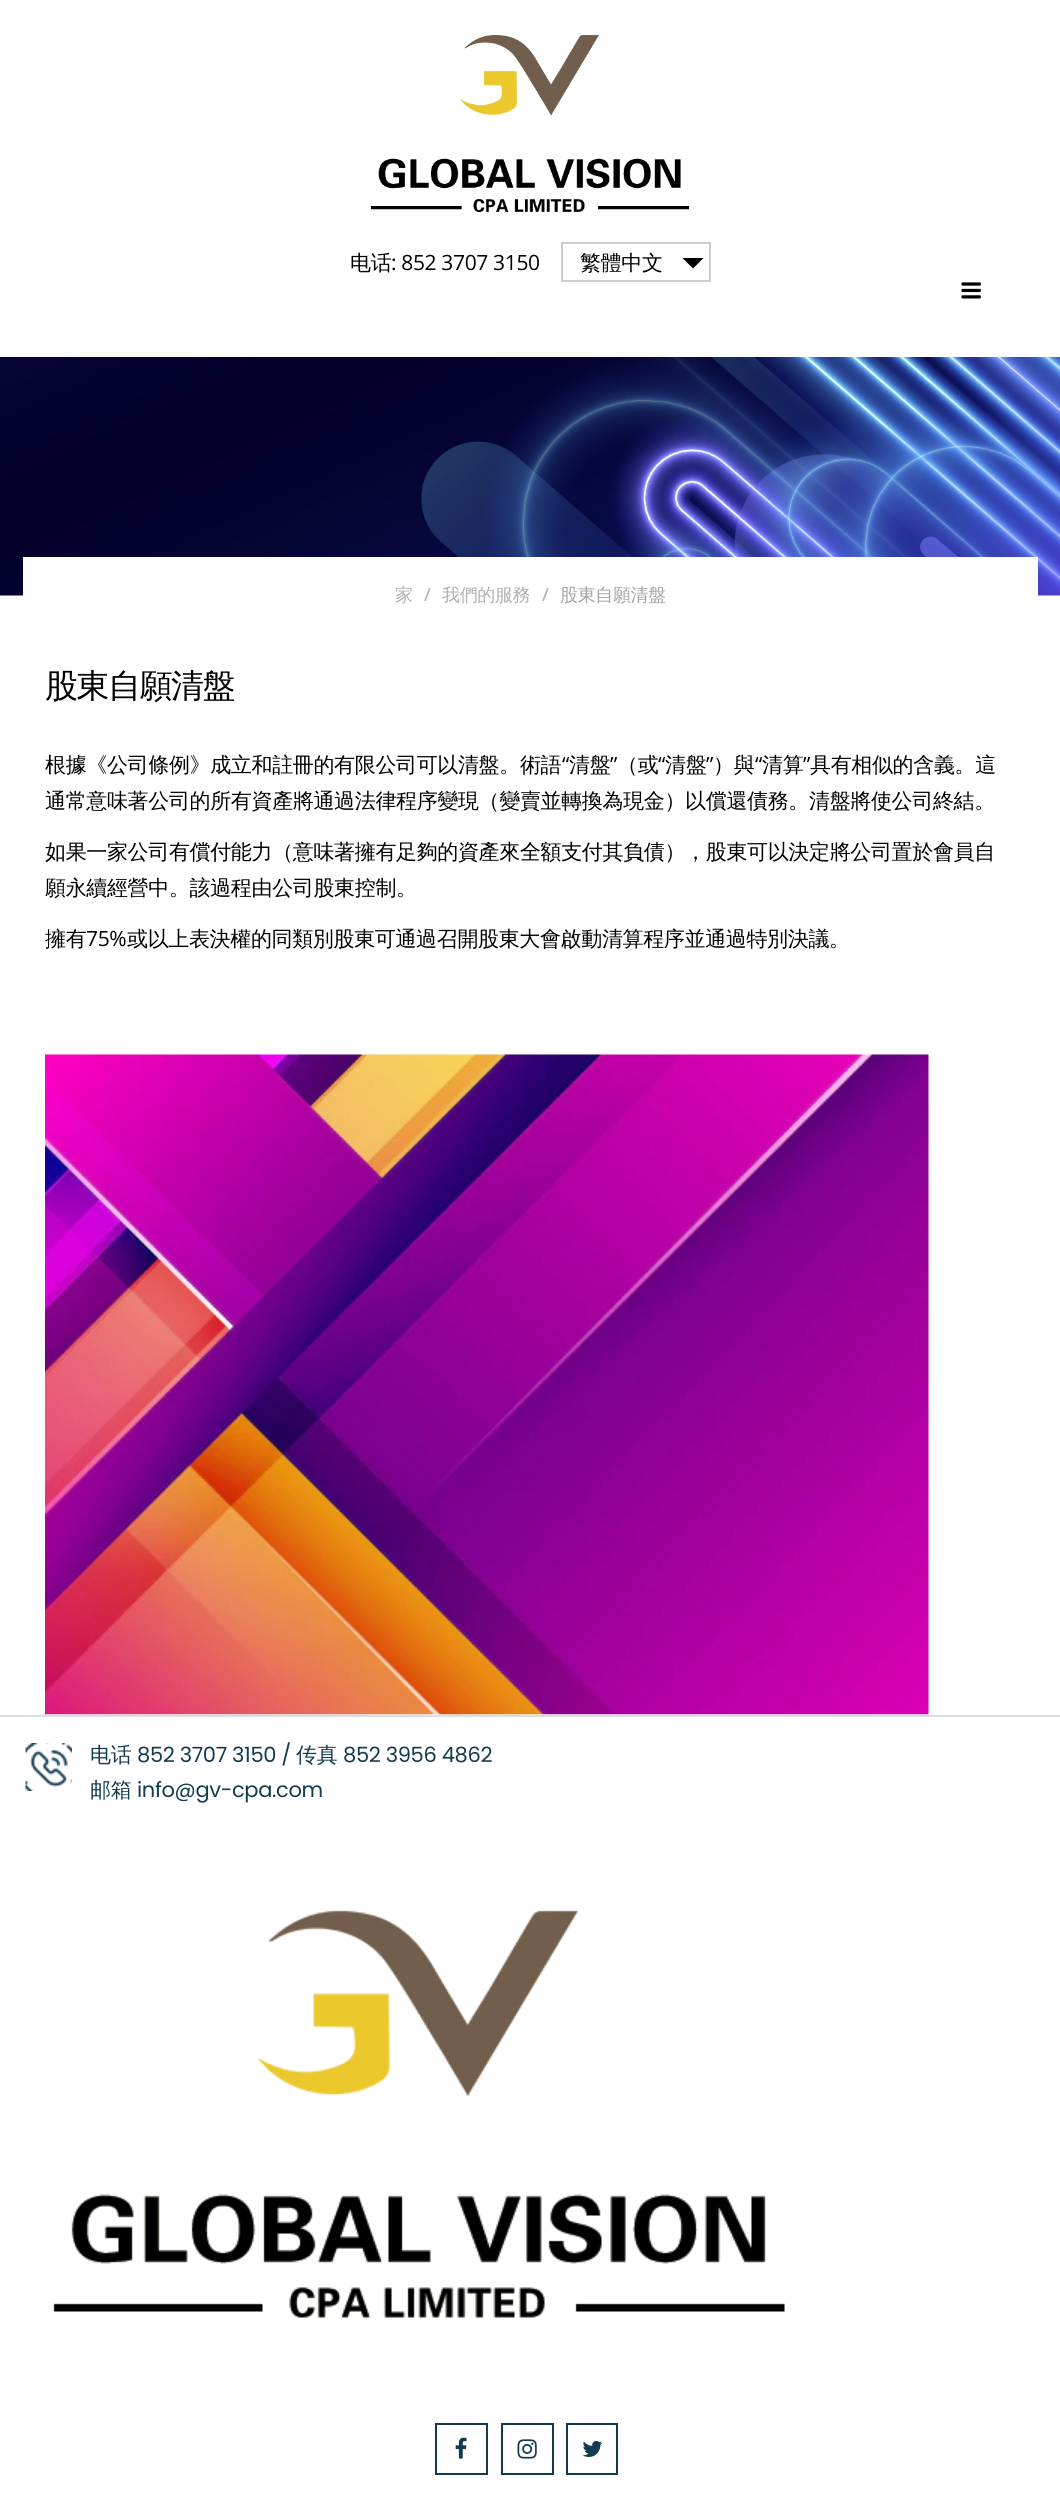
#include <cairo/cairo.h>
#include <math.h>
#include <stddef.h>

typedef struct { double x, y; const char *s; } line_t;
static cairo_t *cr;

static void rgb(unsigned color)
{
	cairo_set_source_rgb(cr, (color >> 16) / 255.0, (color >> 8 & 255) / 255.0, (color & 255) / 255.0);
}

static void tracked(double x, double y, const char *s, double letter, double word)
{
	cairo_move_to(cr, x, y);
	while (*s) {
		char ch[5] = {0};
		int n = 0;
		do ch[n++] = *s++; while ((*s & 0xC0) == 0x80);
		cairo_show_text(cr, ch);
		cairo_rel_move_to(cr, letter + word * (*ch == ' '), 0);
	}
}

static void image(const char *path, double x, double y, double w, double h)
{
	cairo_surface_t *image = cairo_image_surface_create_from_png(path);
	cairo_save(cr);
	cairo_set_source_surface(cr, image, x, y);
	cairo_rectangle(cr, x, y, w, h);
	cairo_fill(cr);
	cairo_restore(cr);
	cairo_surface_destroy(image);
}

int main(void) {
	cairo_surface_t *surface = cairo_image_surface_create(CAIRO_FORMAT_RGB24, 1060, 2506);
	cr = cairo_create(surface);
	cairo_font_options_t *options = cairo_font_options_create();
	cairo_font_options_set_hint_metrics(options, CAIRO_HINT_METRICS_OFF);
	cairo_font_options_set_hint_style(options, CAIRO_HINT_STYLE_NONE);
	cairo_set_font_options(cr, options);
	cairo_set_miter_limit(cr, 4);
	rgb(0xffffff);
	cairo_paint(cr);
	image("img/1.png", 370, 35, 319, 177);
	cairo_rectangle(cr, 562, 243, 148, 38);
	rgb(0xcdcdcd);
	cairo_stroke(cr);
	rgb(0x000000);
	cairo_new_path(cr);
	cairo_move_to(cr, 682.5, 258);
	cairo_line_to(cr, 703.5, 258);
	cairo_line_to(cr, 693, 268.5);
	cairo_close_path(cr);
	cairo_fill(cr);
	image("img/2.png", 961, 282, 20, 17);
	image("img/3.png", 0, 357, 1060, 239);
	rgb(0xffffff);
	cairo_rectangle(cr, 23, 557, 1015, 39);
	cairo_fill(cr);
	image("img/4.png", 45, 1054, 884, 661);
	rgb(0xd9e0e3);
	cairo_rectangle(cr, 0, 1715, 1060, 2);
	cairo_fill(cr);
	image("img/5.png", 25, 1743, 47, 48);
	image("img/6.png", 53, 1910, 732, 408);
	cairo_rectangle(cr, 436, 2424, 51, 50);
	rgb(0x123b50);
	cairo_stroke(cr);
	image("img/7.png", 455, 2437, 12, 22);
	cairo_rectangle(cr, 502, 2424, 51, 50);
	cairo_stroke(cr);
	image("img/8.png", 517, 2439, 20, 20);
	cairo_rectangle(cr, 567, 2424, 50, 50);
	cairo_stroke(cr);
	image("img/9.png", 582, 2440, 21, 17);
	cairo_select_font_face(cr, "WenQuanYi Zen Hei Medium", CAIRO_FONT_SLANT_NORMAL, CAIRO_FONT_WEIGHT_NORMAL);
	cairo_set_font_size(cr, 21);
	rgb(0x000000);
	tracked(350, 270, "电话", -0.35, 0);
	cairo_select_font_face(cr, "Open Sans", CAIRO_FONT_SLANT_NORMAL, CAIRO_FONT_WEIGHT_NORMAL);
	tracked(391, 270, ": 852 3707 3150", -0.35, 0);
	cairo_select_font_face(cr, "WenQuanYi Zen Hei Medium", CAIRO_FONT_SLANT_NORMAL, CAIRO_FONT_WEIGHT_NORMAL);
	tracked(580, 270, "繁體中文", -0.35, 0);
	cairo_set_font_size(cr, 18);
	rgb(0xafafaf);
	tracked(395, 601, "家", -0.35, 0);
	cairo_select_font_face(cr, "Open Sans Medium", CAIRO_FONT_SLANT_NORMAL, CAIRO_FONT_WEIGHT_NORMAL);
	tracked(424, 601, "/", -0.35, 0);
	cairo_select_font_face(cr, "WenQuanYi Zen Hei Medium", CAIRO_FONT_SLANT_NORMAL, CAIRO_FONT_WEIGHT_NORMAL);
	tracked(442, 601, "我們的服務", -0.35, 0);
	cairo_select_font_face(cr, "Open Sans Medium", CAIRO_FONT_SLANT_NORMAL, CAIRO_FONT_WEIGHT_NORMAL);
	tracked(542, 601, "/", -0.35, 0);
	cairo_select_font_face(cr, "WenQuanYi Zen Hei Medium", CAIRO_FONT_SLANT_NORMAL, CAIRO_FONT_WEIGHT_NORMAL);
	rgb(0xa3a3a3);
	tracked(560, 601, "股東自願清盤", -0.35, 0);
	cairo_set_font_size(cr, 33);
	rgb(0x000000);
	tracked(45, 697, "股東自願清盤", -1.5, 0);
	cairo_set_font_size(cr, 21);
	tracked(45, 772, "根據《公司條例》成立和註冊的有限公司可以清盤。術語", -0.35, 0);
	cairo_select_font_face(cr, "Open Sans", CAIRO_FONT_SLANT_NORMAL, CAIRO_FONT_WEIGHT_NORMAL);
	tracked(562, 772, "“", -0.35, 0);
	cairo_select_font_face(cr, "WenQuanYi Zen Hei Medium", CAIRO_FONT_SLANT_NORMAL, CAIRO_FONT_WEIGHT_NORMAL);
	tracked(569, 772, "清盤", -0.35, 0);
	cairo_select_font_face(cr, "Open Sans", CAIRO_FONT_SLANT_NORMAL, CAIRO_FONT_WEIGHT_NORMAL);
	tracked(610, 772, "”", -0.35, 0);
	cairo_select_font_face(cr, "WenQuanYi Zen Hei Medium", CAIRO_FONT_SLANT_NORMAL, CAIRO_FONT_WEIGHT_NORMAL);
	tracked(617, 772, "（或", -0.35, 0);
	cairo_select_font_face(cr, "Open Sans", CAIRO_FONT_SLANT_NORMAL, CAIRO_FONT_WEIGHT_NORMAL);
	tracked(658, 772, "“", -0.35, 0);
	cairo_select_font_face(cr, "WenQuanYi Zen Hei Medium", CAIRO_FONT_SLANT_NORMAL, CAIRO_FONT_WEIGHT_NORMAL);
	tracked(665, 772, "清盤", -0.35, 0);
	cairo_select_font_face(cr, "Open Sans", CAIRO_FONT_SLANT_NORMAL, CAIRO_FONT_WEIGHT_NORMAL);
	tracked(706, 772, "”", -0.35, 0);
	cairo_select_font_face(cr, "WenQuanYi Zen Hei Medium", CAIRO_FONT_SLANT_NORMAL, CAIRO_FONT_WEIGHT_NORMAL);
	tracked(713, 772, "）與", -0.35, 0);
	cairo_select_font_face(cr, "Open Sans", CAIRO_FONT_SLANT_NORMAL, CAIRO_FONT_WEIGHT_NORMAL);
	tracked(755, 772, "“", -0.35, 0);
	cairo_select_font_face(cr, "WenQuanYi Zen Hei Medium", CAIRO_FONT_SLANT_NORMAL, CAIRO_FONT_WEIGHT_NORMAL);
	tracked(762, 772, "清算", -0.35, 0);
	cairo_select_font_face(cr, "Open Sans", CAIRO_FONT_SLANT_NORMAL, CAIRO_FONT_WEIGHT_NORMAL);
	tracked(803, 772, "”", -0.35, 0);
	cairo_select_font_face(cr, "WenQuanYi Zen Hei Medium", CAIRO_FONT_SLANT_NORMAL, CAIRO_FONT_WEIGHT_NORMAL);
	{
		static const line_t items[] = {
			{810, 772, "具有相似的含義。這"},
			{45, 808, "通常意味著公司的所有資產將通過法律程序變現（變賣並轉換為現金）以償還債務。清盤將使公司終結。"},
			{45, 859, "如果一家公司有償付能力（意味著擁有足夠的資產來全額支付其負債），股東可以決定將公司置於會員自"},
			{45, 895, "願永續經營中。該過程由公司股東控制。"},
			{45, 946, "擁有"},
		};
		for (size_t i = 0; i < sizeof items / sizeof *items; i++) {
			tracked(items[i].x, items[i].y, items[i].s, -0.35, 0);
		}
	}
	cairo_select_font_face(cr, "Open Sans", CAIRO_FONT_SLANT_NORMAL, CAIRO_FONT_WEIGHT_NORMAL);
	tracked(86, 946, "75%", -0.35, 0);
	cairo_select_font_face(cr, "WenQuanYi Zen Hei Medium", CAIRO_FONT_SLANT_NORMAL, CAIRO_FONT_WEIGHT_NORMAL);
	tracked(127, 946, "或以上表決權的同類別股東可通過召開股東大會啟動清算程序並通過特別決議。", -0.35, 0);
	rgb(0x123b50);
	tracked(90, 1762, "电话", -0.35, 0);
	cairo_select_font_face(cr, "Poppins", CAIRO_FONT_SLANT_NORMAL, CAIRO_FONT_WEIGHT_NORMAL);
	tracked(137, 1762, "852 3707 3150 /", -0.35, 0);
	cairo_select_font_face(cr, "WenQuanYi Zen Hei Medium", CAIRO_FONT_SLANT_NORMAL, CAIRO_FONT_WEIGHT_NORMAL);
	tracked(296, 1762, "传真", -0.35, 0);
	cairo_select_font_face(cr, "Poppins", CAIRO_FONT_SLANT_NORMAL, CAIRO_FONT_WEIGHT_NORMAL);
	tracked(343, 1762, "852 3956 4862", -0.35, 0);
	cairo_select_font_face(cr, "WenQuanYi Zen Hei Medium", CAIRO_FONT_SLANT_NORMAL, CAIRO_FONT_WEIGHT_NORMAL);
	tracked(90, 1797, "邮箱", -0.35, 0);
	cairo_select_font_face(cr, "Poppins", CAIRO_FONT_SLANT_NORMAL, CAIRO_FONT_WEIGHT_NORMAL);
	tracked(137, 1797, "info@gv-cpa.com", -0.35, 0);
	cairo_surface_write_to_png(surface, "page.png");
	cairo_font_options_destroy(options);
	cairo_destroy(cr);
	cairo_surface_destroy(surface);
	return 0;
}
